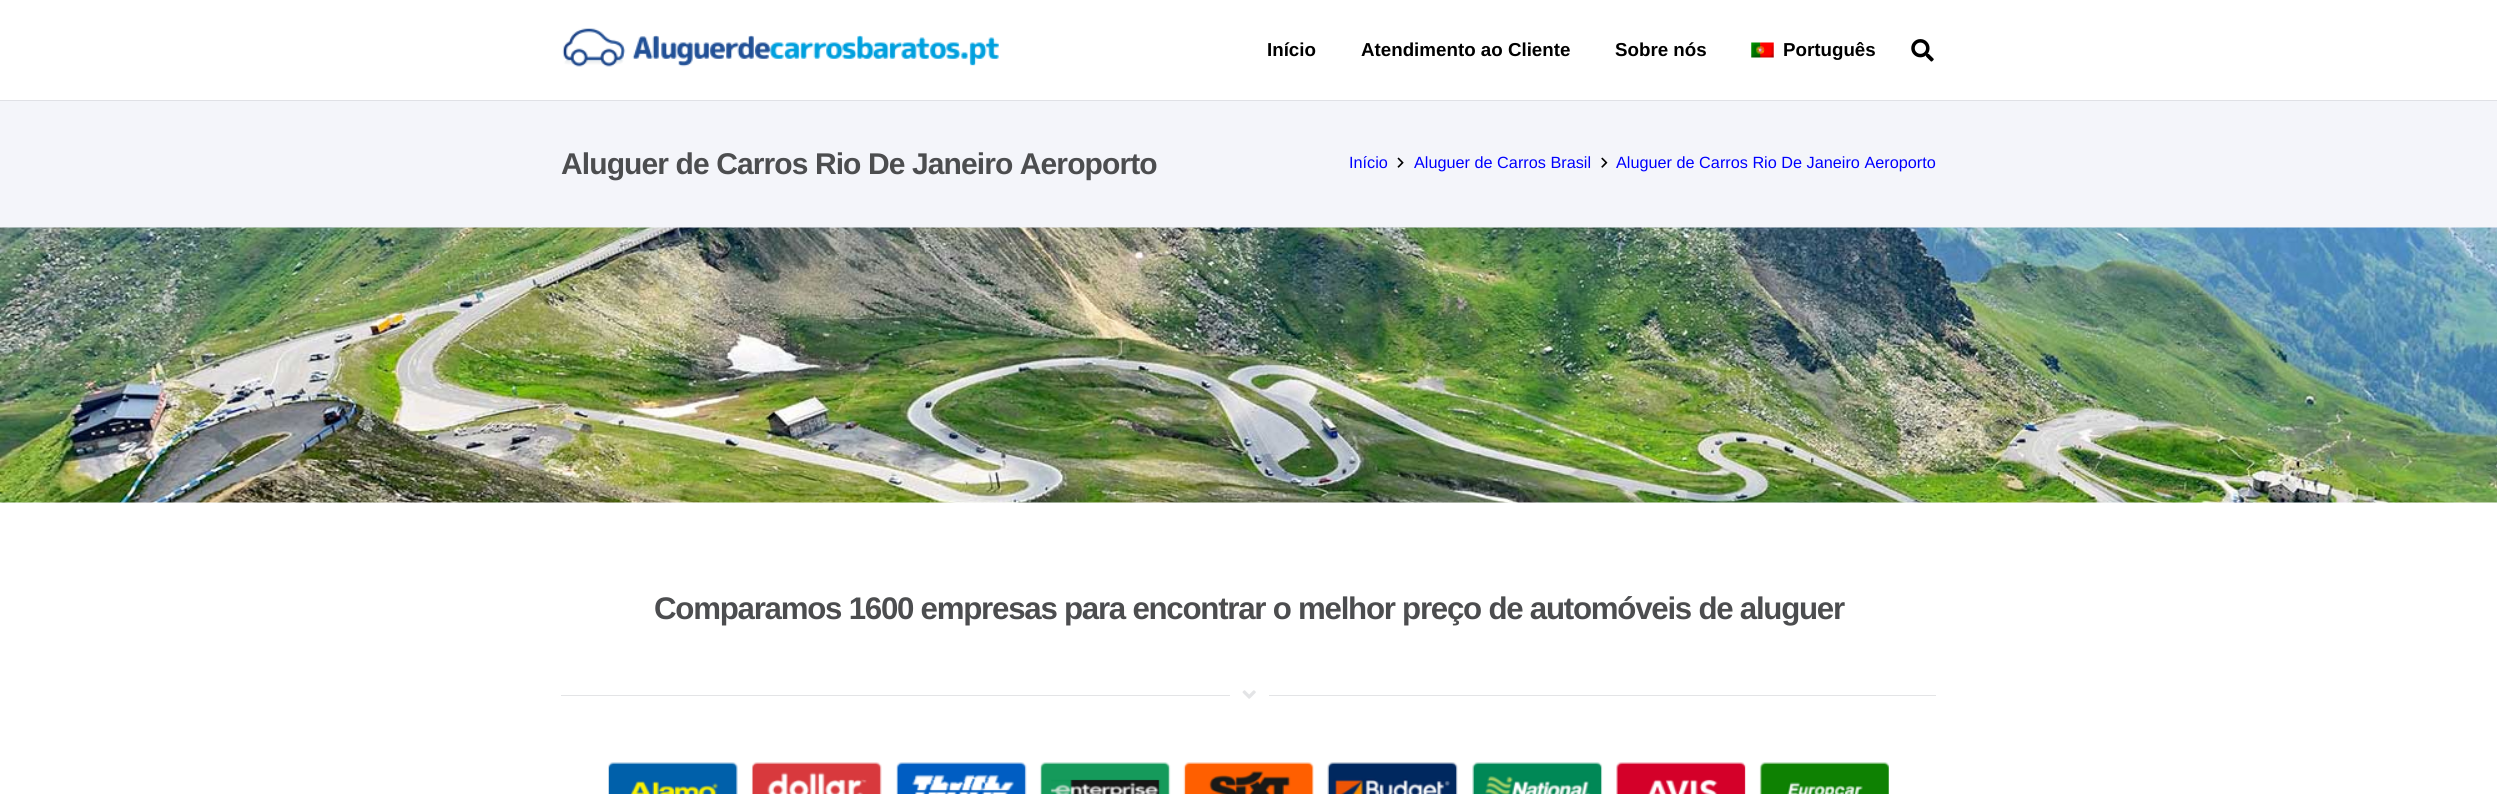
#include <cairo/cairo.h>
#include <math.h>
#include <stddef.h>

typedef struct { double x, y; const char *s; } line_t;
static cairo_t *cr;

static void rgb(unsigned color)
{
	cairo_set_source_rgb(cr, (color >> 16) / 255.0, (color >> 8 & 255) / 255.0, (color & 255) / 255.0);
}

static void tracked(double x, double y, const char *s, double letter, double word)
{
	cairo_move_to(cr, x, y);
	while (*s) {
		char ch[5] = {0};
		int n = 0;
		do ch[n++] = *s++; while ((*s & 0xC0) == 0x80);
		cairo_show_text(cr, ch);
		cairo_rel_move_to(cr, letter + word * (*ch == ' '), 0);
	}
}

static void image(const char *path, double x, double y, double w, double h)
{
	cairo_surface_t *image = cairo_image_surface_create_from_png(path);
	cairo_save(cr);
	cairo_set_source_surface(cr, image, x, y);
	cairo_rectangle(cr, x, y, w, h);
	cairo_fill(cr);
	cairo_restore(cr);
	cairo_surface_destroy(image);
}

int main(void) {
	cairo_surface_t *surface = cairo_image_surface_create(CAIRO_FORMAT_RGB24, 2497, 794);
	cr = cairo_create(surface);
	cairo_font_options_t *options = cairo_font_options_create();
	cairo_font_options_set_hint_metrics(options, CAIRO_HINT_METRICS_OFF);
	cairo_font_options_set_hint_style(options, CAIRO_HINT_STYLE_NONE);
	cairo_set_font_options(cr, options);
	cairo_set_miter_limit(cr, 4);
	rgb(0xffffff);
	cairo_paint(cr);
	rgb(0xe0e1e6);
	cairo_new_path(cr);
	cairo_move_to(cr, 0, 100);
	cairo_line_to(cr, 0, 101);
	cairo_line_to(cr, 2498, 101);
	cairo_line_to(cr, 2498, 1);
	cairo_line_to(cr, 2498, 100);
	cairo_close_path(cr);
	cairo_fill(cr);
	image("img/1.png", 562, 28, 437, 39);
	image("img/2.png", 1751, 42, 23, 16);
	image("img/3.png", 1911, 39, 23, 23);
	rgb(0xf4f5fa);
	cairo_rectangle(cr, 0, 101, 2497, 127);
	cairo_fill(cr);
	image("img/4.png", 1397, 157, 7, 11);
	image("img/5.png", 1601, 157, 7, 11);
	image("img/6.png", 0, 227, 2497, 276);
	rgb(0xe3e4e6);
	cairo_rectangle(cr, 561, 695, 669, 1);
	cairo_fill(cr);
	image("img/7.png", 1242, 690, 14, 9);
	cairo_rectangle(cr, 1269, 695, 667, 1);
	cairo_fill(cr);
	image("img/8.png", 608, 762, 1281, 32);
	cairo_select_font_face(cr, "Liberation Sans", CAIRO_FONT_SLANT_NORMAL, CAIRO_FONT_WEIGHT_BOLD);
	cairo_set_font_size(cr, 18.75);
	rgb(0x000000);
	{
		static const line_t items[] = {
			{1267, 56, "Início"},
			{1361, 56, "Atendimento ao Cliente"},
			{1615, 56, "Sobre nós"},
			{1783, 56, "Português"},
		};
		for (size_t i = 0; i < sizeof items / sizeof *items; i++) {
			cairo_move_to(cr, items[i].x, items[i].y);
			cairo_show_text(cr, items[i].s);
		}
	}
	cairo_set_font_size(cr, 30);
	rgb(0x4c4d4f);
	tracked(561, 174, "Aluguer de Carros Rio De Janeiro Aeroporto", -0.9, 0);
	cairo_select_font_face(cr, "Liberation Sans", CAIRO_FONT_SLANT_NORMAL, CAIRO_FONT_WEIGHT_NORMAL);
	cairo_set_font_size(cr, 16.25);
	rgb(0x0000ff);
	{
		static const line_t items[] = {
			{1349, 168, "Início"},
			{1414, 168, "Aluguer de Carros Brasil"},
			{1616, 168, "Aluguer de Carros Rio De Janeiro Aeroporto"},
		};
		for (size_t i = 0; i < sizeof items / sizeof *items; i++) {
			cairo_move_to(cr, items[i].x, items[i].y);
			cairo_show_text(cr, items[i].s);
		}
	}
	cairo_select_font_face(cr, "Liberation Sans", CAIRO_FONT_SLANT_NORMAL, CAIRO_FONT_WEIGHT_BOLD);
	cairo_set_font_size(cr, 31.25);
	rgb(0x4c4d4f);
	tracked(654, 619, "Comparamos 1600 empresas para encontrar o melhor preço de automóveis de aluguer", -1.25, 0);
	cairo_surface_write_to_png(surface, "page.png");
	cairo_font_options_destroy(options);
	cairo_destroy(cr);
	cairo_surface_destroy(surface);
	return 0;
}
